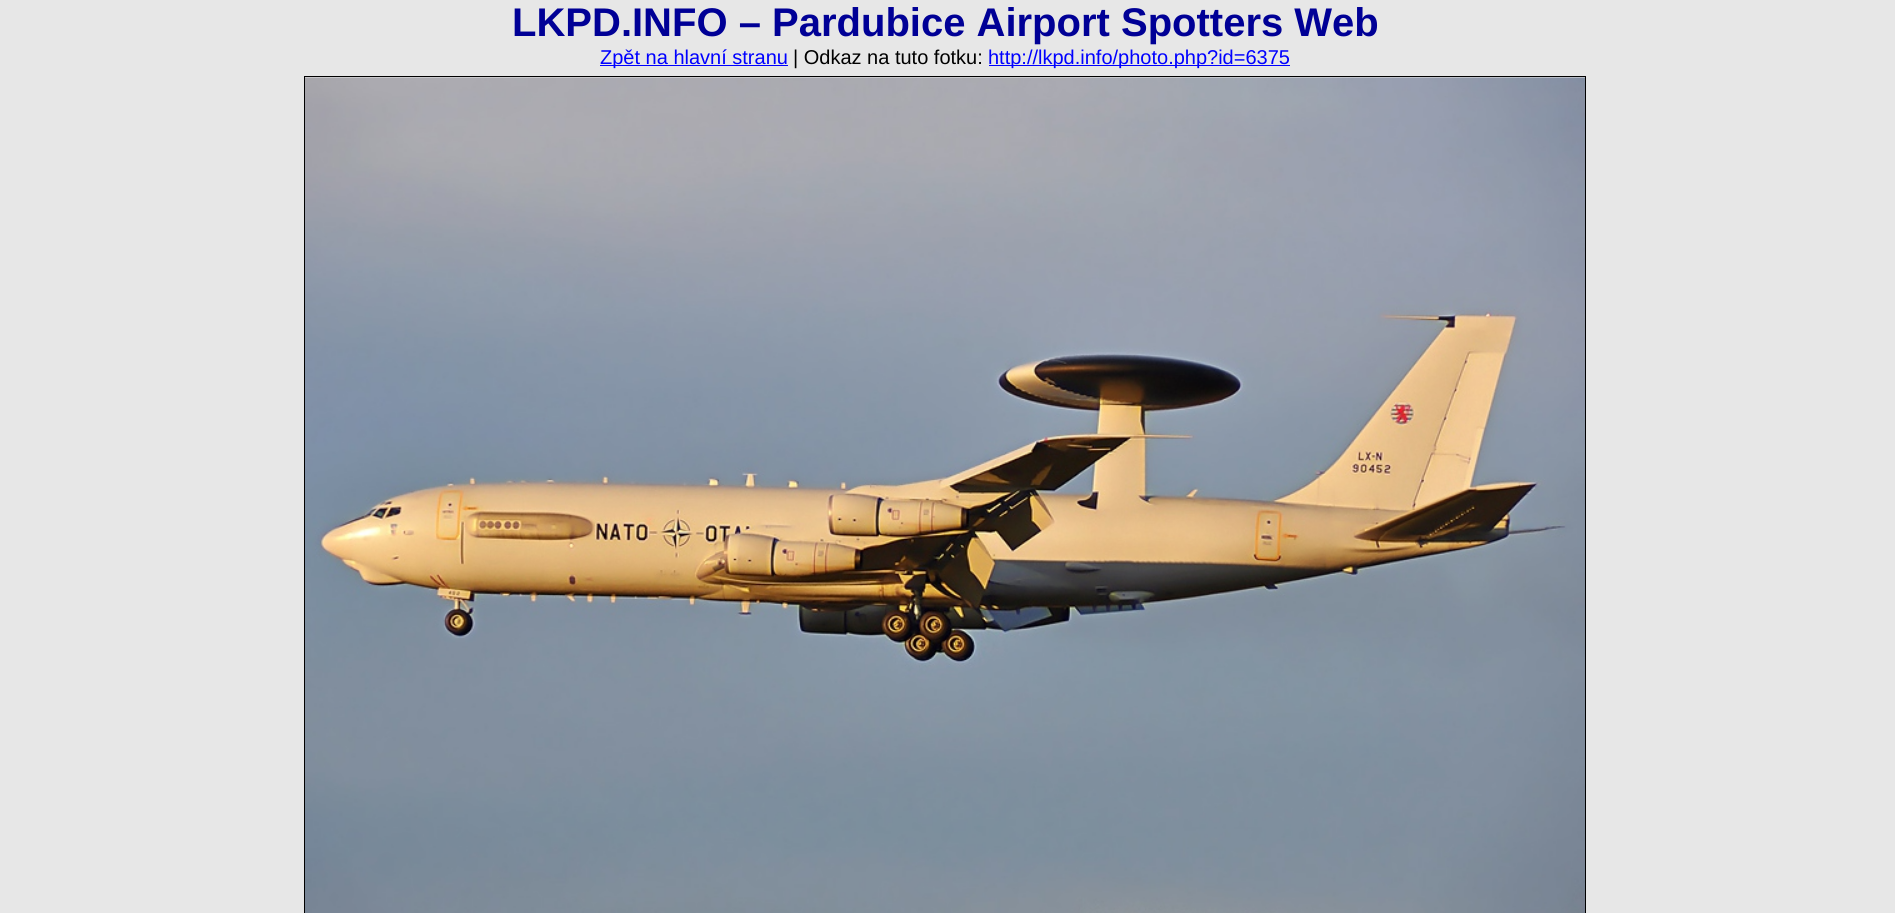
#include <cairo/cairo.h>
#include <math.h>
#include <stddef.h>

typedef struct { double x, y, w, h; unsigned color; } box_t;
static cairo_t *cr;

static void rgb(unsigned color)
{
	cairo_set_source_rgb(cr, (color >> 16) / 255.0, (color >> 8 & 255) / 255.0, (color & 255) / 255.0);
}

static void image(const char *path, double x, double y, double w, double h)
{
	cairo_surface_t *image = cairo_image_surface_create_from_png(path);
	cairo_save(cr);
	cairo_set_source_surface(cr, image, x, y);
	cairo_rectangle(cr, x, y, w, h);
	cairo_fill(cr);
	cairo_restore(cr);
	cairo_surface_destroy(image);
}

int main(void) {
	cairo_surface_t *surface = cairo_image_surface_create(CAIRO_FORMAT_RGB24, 1895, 913);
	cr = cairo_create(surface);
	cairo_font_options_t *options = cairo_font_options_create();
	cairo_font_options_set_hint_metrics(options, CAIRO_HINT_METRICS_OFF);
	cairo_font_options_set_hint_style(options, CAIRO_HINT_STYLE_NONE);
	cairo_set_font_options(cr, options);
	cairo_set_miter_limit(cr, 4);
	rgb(0xe7e7e7);
	cairo_paint(cr);
	{
		static const box_t items[] = {
			{600, 65, 188, 1, 0x0000ff},
			{989, 65, 301, 1, 0x0000ff},
			{304, 76, 1282, 1, 0x000000},
			{304, 76, 1, 837, 0x000000},
		};
		for (size_t i = 0; i < sizeof items / sizeof *items; i++) {
			rgb(items[i].color);
			cairo_rectangle(cr, items[i].x, items[i].y, items[i].w, items[i].h);
			cairo_fill(cr);
		}
	}
	image("img/1.png", 305, 77, 1280, 836);
	cairo_rectangle(cr, 1585, 76, 1, 837);
	cairo_fill(cr);
	cairo_select_font_face(cr, "Liberation Sans", CAIRO_FONT_SLANT_NORMAL, CAIRO_FONT_WEIGHT_BOLD);
	cairo_set_font_size(cr, 40);
	rgb(0x000096);
	cairo_move_to(cr, 512, 36);
	cairo_show_text(cr, "LKPD.INFO – Pardubice Airport Spotters Web");
	cairo_select_font_face(cr, "Liberation Sans", CAIRO_FONT_SLANT_NORMAL, CAIRO_FONT_WEIGHT_NORMAL);
	cairo_set_font_size(cr, 20);
	rgb(0x0000ff);
	cairo_move_to(cr, 600, 64);
	cairo_show_text(cr, "Zpět na hlavní stranu");
	rgb(0x000000);
	cairo_move_to(cr, 793, 64);
	cairo_show_text(cr, "| Odkaz na tuto fotku:");
	rgb(0x0000ff);
	cairo_move_to(cr, 988, 64);
	cairo_show_text(cr, "http://lkpd.info/photo.php?id=6375");
	cairo_surface_write_to_png(surface, "page.png");
	cairo_font_options_destroy(options);
	cairo_destroy(cr);
	cairo_surface_destroy(surface);
	return 0;
}
